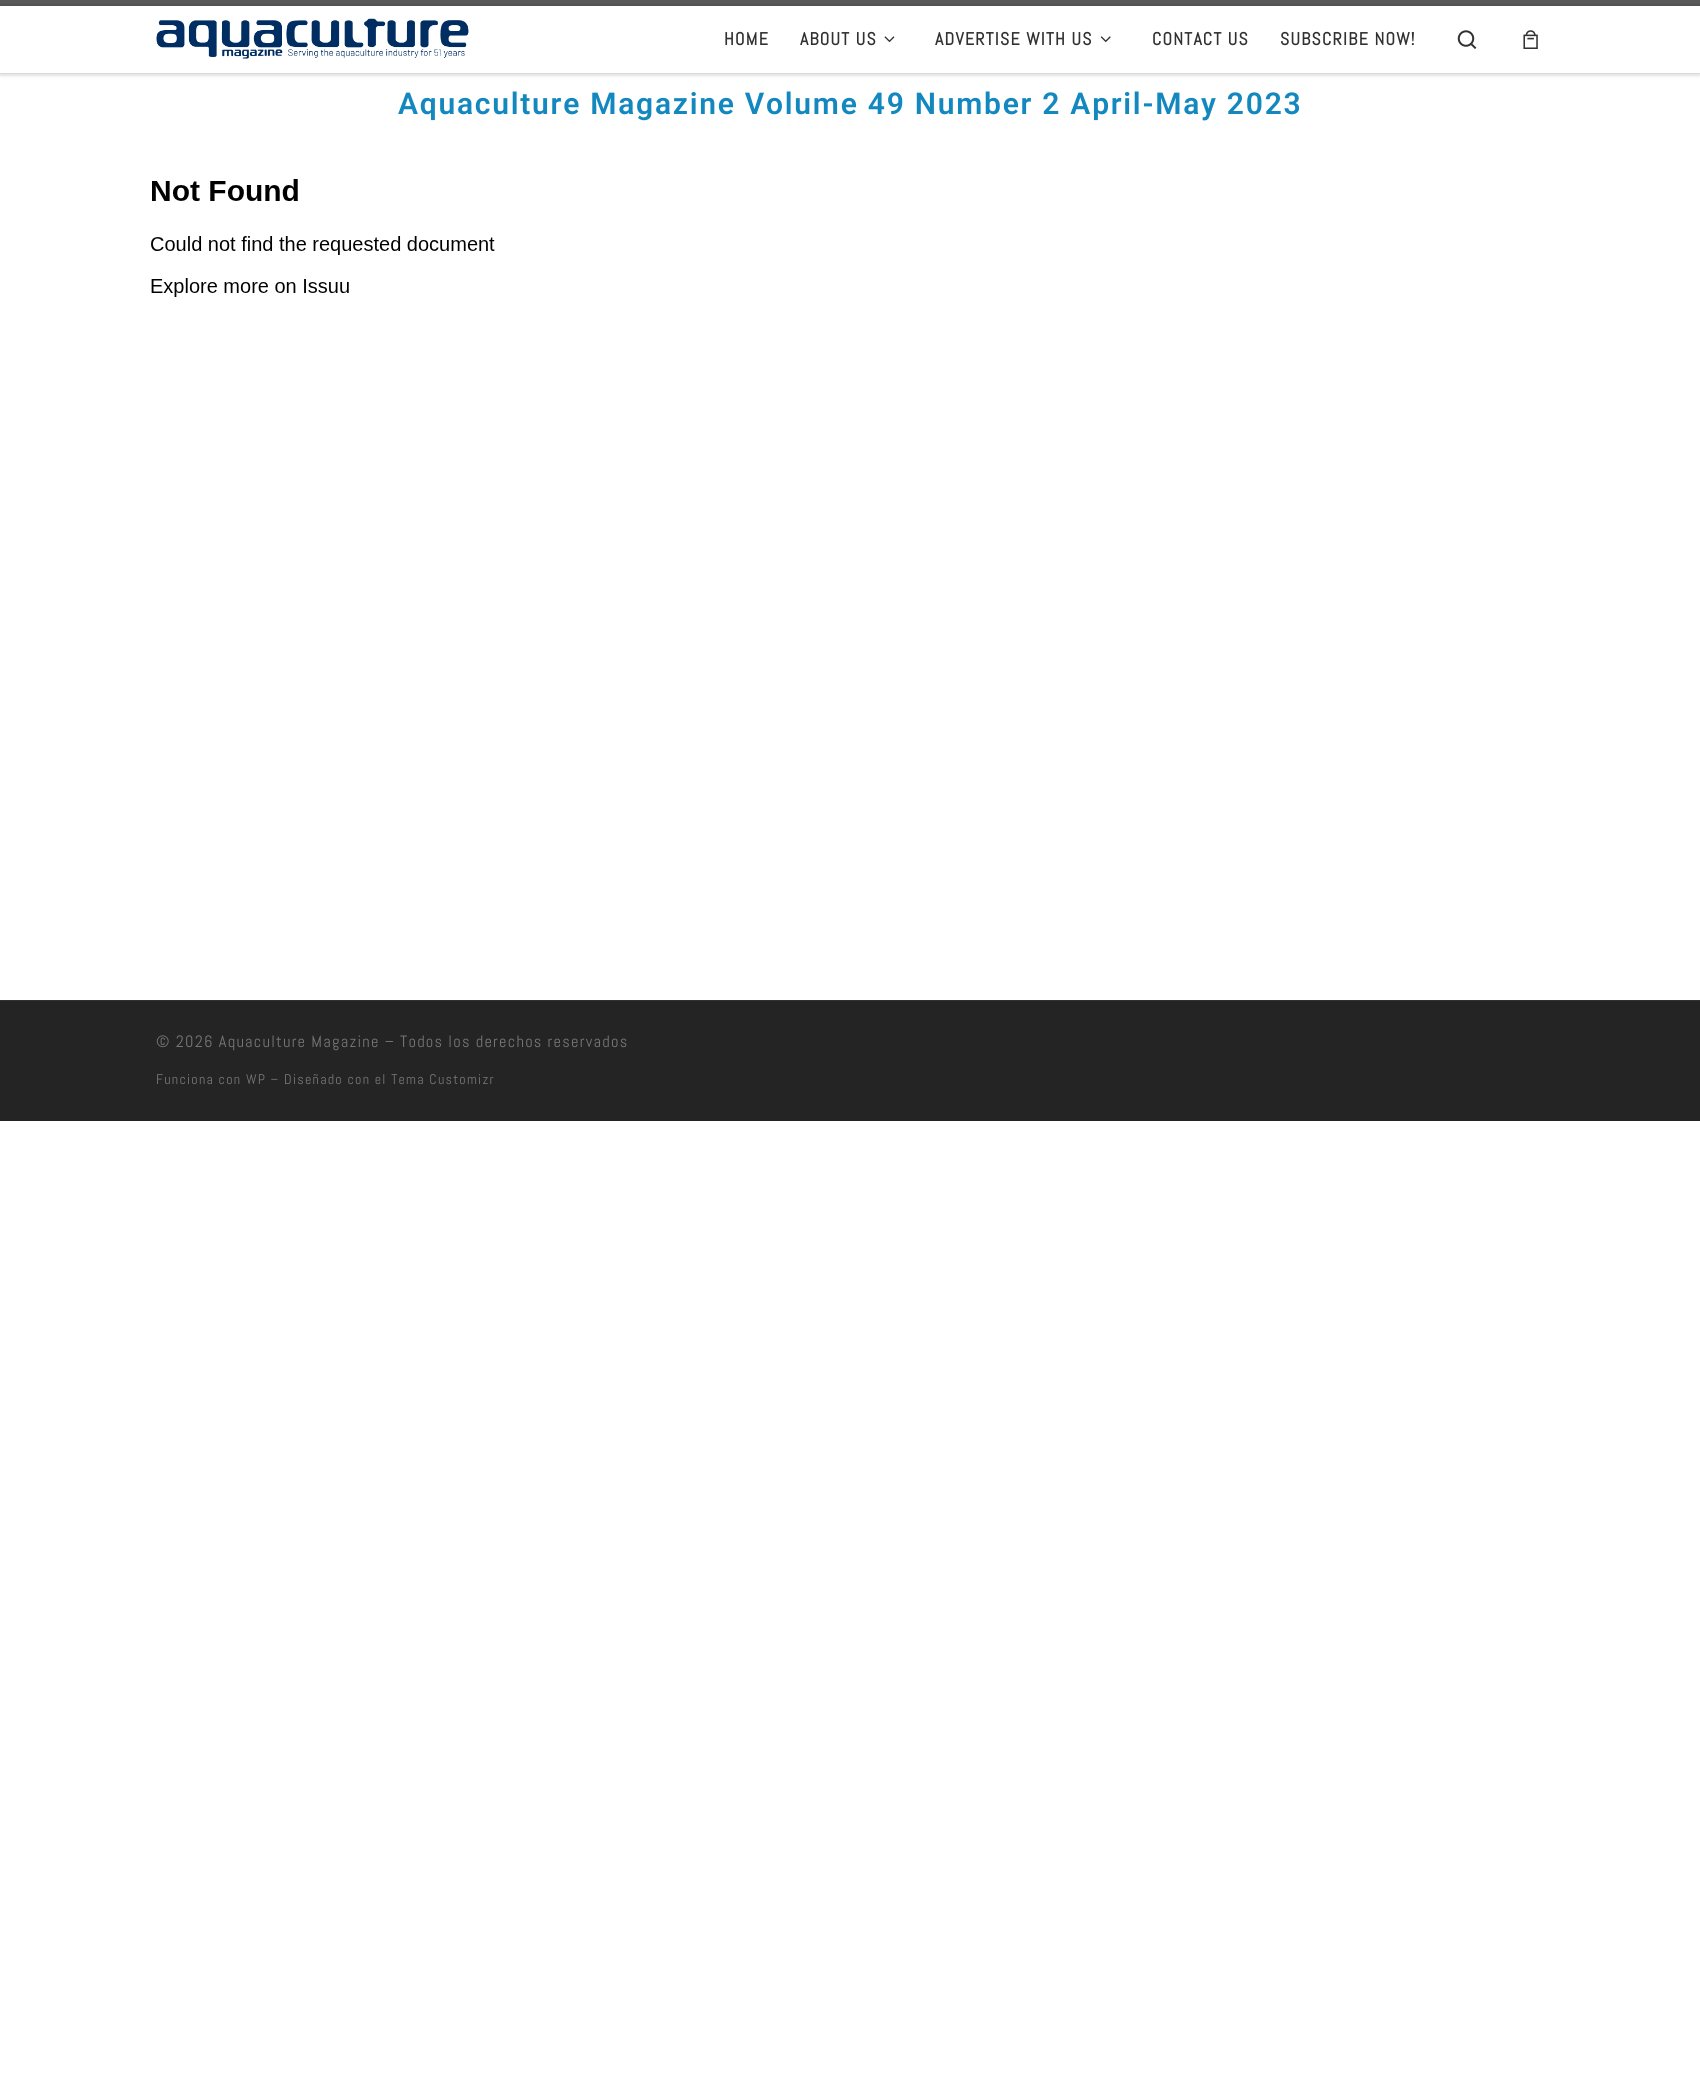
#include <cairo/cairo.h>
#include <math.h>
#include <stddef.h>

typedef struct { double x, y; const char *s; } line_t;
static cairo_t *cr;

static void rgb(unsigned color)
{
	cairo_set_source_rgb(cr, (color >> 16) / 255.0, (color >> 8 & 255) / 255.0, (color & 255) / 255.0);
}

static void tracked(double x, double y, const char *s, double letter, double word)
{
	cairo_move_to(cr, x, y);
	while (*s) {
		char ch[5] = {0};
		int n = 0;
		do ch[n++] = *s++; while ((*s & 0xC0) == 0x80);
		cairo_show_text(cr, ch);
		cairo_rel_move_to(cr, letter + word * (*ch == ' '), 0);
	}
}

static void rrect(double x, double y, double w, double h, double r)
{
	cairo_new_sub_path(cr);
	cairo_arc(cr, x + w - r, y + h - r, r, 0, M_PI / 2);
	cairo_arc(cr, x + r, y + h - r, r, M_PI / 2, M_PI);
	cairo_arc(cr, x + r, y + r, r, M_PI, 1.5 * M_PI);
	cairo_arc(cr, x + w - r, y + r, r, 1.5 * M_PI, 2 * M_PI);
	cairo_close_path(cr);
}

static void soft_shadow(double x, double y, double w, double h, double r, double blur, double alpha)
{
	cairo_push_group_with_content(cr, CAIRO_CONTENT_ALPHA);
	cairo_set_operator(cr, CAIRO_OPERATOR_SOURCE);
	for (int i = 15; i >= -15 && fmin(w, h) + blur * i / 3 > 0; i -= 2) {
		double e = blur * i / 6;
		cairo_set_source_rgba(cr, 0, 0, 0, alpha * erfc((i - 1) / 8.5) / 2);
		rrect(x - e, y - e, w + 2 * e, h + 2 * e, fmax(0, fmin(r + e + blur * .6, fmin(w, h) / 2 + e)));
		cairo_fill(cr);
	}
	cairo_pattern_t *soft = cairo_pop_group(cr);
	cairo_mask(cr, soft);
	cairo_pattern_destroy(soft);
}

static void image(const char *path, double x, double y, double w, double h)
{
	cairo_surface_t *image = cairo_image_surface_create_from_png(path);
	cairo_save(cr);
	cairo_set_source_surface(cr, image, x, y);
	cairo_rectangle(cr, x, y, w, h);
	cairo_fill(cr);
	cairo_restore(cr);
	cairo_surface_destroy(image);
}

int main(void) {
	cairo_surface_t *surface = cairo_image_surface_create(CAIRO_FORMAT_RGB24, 1700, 2076);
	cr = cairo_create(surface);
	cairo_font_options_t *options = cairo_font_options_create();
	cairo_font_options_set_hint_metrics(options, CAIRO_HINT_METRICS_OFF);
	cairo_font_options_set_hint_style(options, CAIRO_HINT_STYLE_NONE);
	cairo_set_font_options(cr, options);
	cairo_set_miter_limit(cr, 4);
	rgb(0xffffff);
	cairo_paint(cr);
	rgb(0x666666);
	soft_shadow(0, 3, 1700, 73, 0, 1, 0.08);
	rgb(0x5a5a5a);
	cairo_rectangle(cr, 0, 0, 1700, 6);
	cairo_fill(cr);
	rgb(0xececec);
	cairo_rectangle(cr, 0, 73, 1700, 1);
	cairo_fill(cr);
	cairo_set_source_rgba(cr, 1, 1, 1, 0.15);
	cairo_rectangle(cr, 0, 73, 1700, 1);
	cairo_fill(cr);
	rgb(0x000000);
	soft_shadow(0, 6, 1700, 67, 0, 3, 0.2);
	rgb(0xffffff);
	cairo_rectangle(cr, 0, 6, 1700, 67);
	cairo_fill(cr);
	image("img/1.png", 156, 18, 313, 41);
	image("img/2.png", 884, 36, 11, 7);
	image("img/3.png", 1100, 36, 11, 7);
	image("img/4.png", 1457, 30, 20, 19);
	image("img/5.png", 1523, 30, 15, 19);
	image("img/6.png", 151, 179, 344, 118);
	rgb(0x313131);
	cairo_rectangle(cr, 0, 1000, 1700, 1);
	cairo_fill(cr);
	rgb(0x242424);
	cairo_rectangle(cr, 0, 1001, 1700, 120);
	cairo_fill(cr);
	cairo_select_font_face(cr, "Abel", CAIRO_FONT_SLANT_NORMAL, CAIRO_FONT_WEIGHT_BOLD);
	cairo_set_font_size(cr, 17.75);
	rgb(0x313131);
	{
		static const line_t items[] = {
			{724, 45, "HOME"},
			{800, 45, "ABOUT US"},
			{935, 45, "ADVERTISE WITH US"},
			{1152, 45, "CONTACT US"},
			{1280, 45, "SUBSCRIBE NOW!"},
		};
		for (size_t i = 0; i < sizeof items / sizeof *items; i++) {
			tracked(items[i].x, items[i].y, items[i].s, 1.25, 0);
		}
	}
	cairo_select_font_face(cr, "Roboto SemiBold", CAIRO_FONT_SLANT_NORMAL, CAIRO_FONT_WEIGHT_NORMAL);
	cairo_set_font_size(cr, 30);
	rgb(0x1388bf);
	tracked(398, 114, "Aquaculture Magazine Volume 49 Number 2 April-May 2023", 1.75, 0);
	cairo_select_font_face(cr, "Abel", CAIRO_FONT_SLANT_NORMAL, CAIRO_FONT_WEIGHT_NORMAL);
	cairo_set_font_size(cr, 16.4);
	rgb(0x777777);
	tracked(156, 1047, "© 2026 Aquaculture Magazine – Todos los derechos reservados", 1.25, 0);
	cairo_set_font_size(cr, 14);
	tracked(156, 1084, "Funciona con WP – Diseñado con el Tema Customizr", 1.25, 0);
	cairo_surface_write_to_png(surface, "page.png");
	cairo_font_options_destroy(options);
	cairo_destroy(cr);
	cairo_surface_destroy(surface);
	return 0;
}
